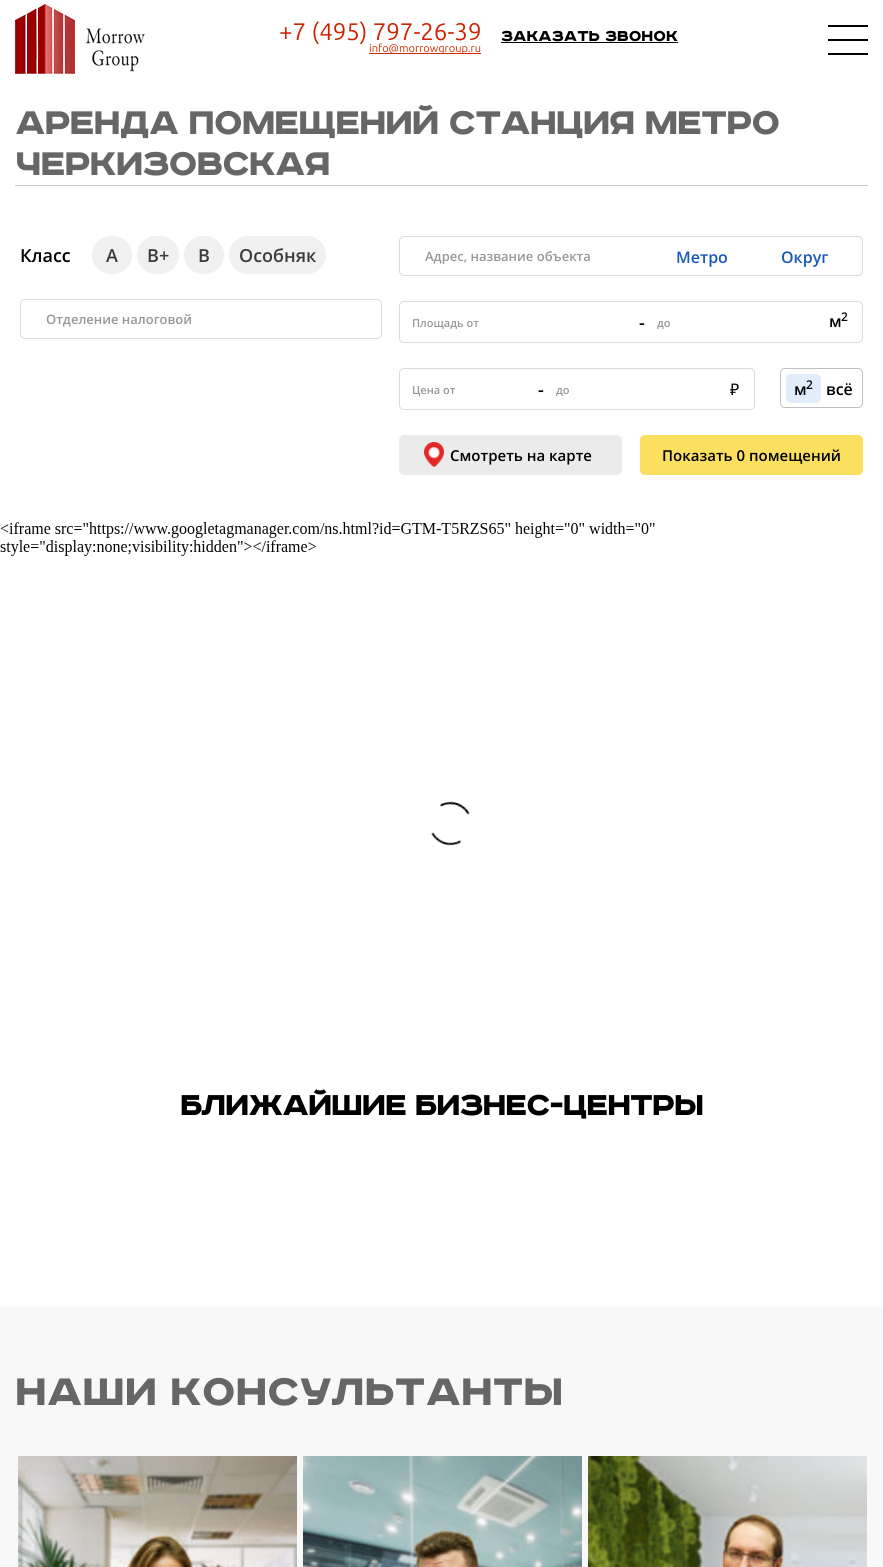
#include <cairo/cairo.h>
#include <math.h>
#include <stddef.h>

typedef struct { double x, y; const char *s; } line_t;
typedef struct { double x, y, w, h; unsigned color; } box_t;
static cairo_t *cr;

static void rgb(unsigned color)
{
	cairo_set_source_rgb(cr, (color >> 16) / 255.0, (color >> 8 & 255) / 255.0, (color & 255) / 255.0);
}

static void tracked(double x, double y, const char *s, double letter, double word)
{
	cairo_move_to(cr, x, y);
	while (*s) {
		char ch[5] = {0};
		int n = 0;
		do ch[n++] = *s++; while ((*s & 0xC0) == 0x80);
		cairo_show_text(cr, ch);
		cairo_rel_move_to(cr, letter + word * (*ch == ' '), 0);
	}
}

static void rrect(double x, double y, double w, double h, double r)
{
	cairo_new_sub_path(cr);
	cairo_arc(cr, x + w - r, y + h - r, r, 0, M_PI / 2);
	cairo_arc(cr, x + r, y + h - r, r, M_PI / 2, M_PI);
	cairo_arc(cr, x + r, y + r, r, M_PI, 1.5 * M_PI);
	cairo_arc(cr, x + w - r, y + r, r, 1.5 * M_PI, 2 * M_PI);
	cairo_close_path(cr);
}

static void image(const char *path, double x, double y, double w, double h)
{
	cairo_surface_t *image = cairo_image_surface_create_from_png(path);
	cairo_save(cr);
	cairo_set_source_surface(cr, image, x, y);
	cairo_rectangle(cr, x, y, w, h);
	cairo_fill(cr);
	cairo_restore(cr);
	cairo_surface_destroy(image);
}

int main(void) {
	cairo_surface_t *surface = cairo_image_surface_create(CAIRO_FORMAT_RGB24, 883, 1567);
	cr = cairo_create(surface);
	cairo_font_options_t *options = cairo_font_options_create();
	cairo_font_options_set_hint_metrics(options, CAIRO_HINT_METRICS_OFF);
	cairo_font_options_set_hint_style(options, CAIRO_HINT_STYLE_NONE);
	cairo_set_font_options(cr, options);
	cairo_set_miter_limit(cr, 4);
	rgb(0xffffff);
	cairo_paint(cr);
	image("img/1.png", 15, 4, 130, 70);
	{
		static const box_t items[] = {
			{369, 53, 112, 1, 0xd12a01},
			{501, 42, 177, 1, 0x000000},
			{828, 25, 40, 2, 0x000000},
			{828, 53, 40, 2, 0x000000},
			{828, 39, 40, 2, 0x000000},
			{15, 185, 853, 1, 0xcbcbcb},
		};
		for (size_t i = 0; i < sizeof items / sizeof *items; i++) {
			rgb(items[i].color);
			cairo_rectangle(cr, items[i].x, items[i].y, items[i].w, items[i].h);
			cairo_fill(cr);
		}
	}
	rgb(0xf0f0f0);
	rrect(92, 236, 40, 38, 19);
	cairo_fill(cr);
	rrect(137, 236, 42, 38, 19);
	cairo_fill(cr);
	rrect(184, 236, 40, 38, 19);
	cairo_fill(cr);
	rrect(229, 236, 97, 38, 19);
	cairo_fill(cr);
	rrect(20.5, 299.5, 361, 39, 4.5);
	rgb(0xdbdbdb);
	cairo_set_line_width(cr, 1);
	cairo_stroke(cr);
	rrect(399.5, 236.5, 463, 39, 4.5);
	cairo_stroke(cr);
	rrect(399.5, 301.5, 463, 41, 4.5);
	cairo_stroke(cr);
	rgb(0xffffff);
	rrect(400, 302, 184, 40, 5);
	cairo_fill(cr);
	rrect(399.5, 368.5, 355, 41, 4.5);
	rgb(0xdbdbdb);
	cairo_stroke(cr);
	rgb(0xffffff);
	rrect(400, 369, 106, 40, 5);
	cairo_fill(cr);
	rrect(780.5, 368.5, 82, 39, 4.5);
	rgb(0xbfbfbf);
	cairo_stroke(cr);
	rgb(0xe1edfa);
	rrect(786, 374, 35, 29, 5);
	cairo_fill(cr);
	rgb(0xebebeb);
	rrect(399, 435, 223, 40, 5);
	cairo_fill(cr);
	image("img/2.png", 424, 442, 20, 25);
	rgb(0xfbdf5e);
	rrect(640, 435, 223, 40, 5);
	cairo_fill(cr);
	image("img/3.png", 0, 522, 655, 324);
	rgb(0xf8f8f8);
	cairo_rectangle(cr, 0, 1307, 883, 260);
	cairo_fill(cr);
	image("img/4.png", 18, 1456, 279, 111);
	image("img/5.png", 303, 1456, 279, 111);
	image("img/6.png", 588, 1456, 279, 111);
	cairo_select_font_face(cr, "Ubuntu", CAIRO_FONT_SLANT_NORMAL, CAIRO_FONT_WEIGHT_NORMAL);
	cairo_set_font_size(cr, 24);
	rgb(0xcc2200);
	cairo_move_to(cr, 279, 40);
	cairo_show_text(cr, "+7 (495) 797-26-39");
	cairo_set_font_size(cr, 11);
	rgb(0xd12a01);
	cairo_move_to(cr, 369, 52);
	cairo_show_text(cr, "info@morrowgroup.ru");
	cairo_select_font_face(cr, "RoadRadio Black", CAIRO_FONT_SLANT_NORMAL, CAIRO_FONT_WEIGHT_NORMAL);
	cairo_set_font_size(cr, 18);
	rgb(0x000000);
	cairo_move_to(cr, 501, 41);
	cairo_show_text(cr, "Заказать звонок");
	cairo_set_font_size(cr, 41);
	rgb(0x666666);
	tracked(15, 134, "АРЕНДА ПОМЕЩЕНИЙ СТАНЦИЯ МЕТРО", -1, 0);
	tracked(15, 175, "ЧЕРКИЗОВСКАЯ", -1, 0);
	cairo_select_font_face(cr, "Open Sans SemiBold", CAIRO_FONT_SLANT_NORMAL, CAIRO_FONT_WEIGHT_NORMAL);
	cairo_set_font_size(cr, 18);
	rgb(0x000000);
	cairo_move_to(cr, 20, 262);
	cairo_show_text(cr, "Класс");
	rgb(0x3c3c3c);
	{
		static const line_t items[] = {
			{106, 262, "А"},
			{147, 262, "В+"},
			{198, 262, "В"},
			{239, 262, "Особняк"},
		};
		for (size_t i = 0; i < sizeof items / sizeof *items; i++) {
			cairo_move_to(cr, items[i].x, items[i].y);
			cairo_show_text(cr, items[i].s);
		}
	}
	cairo_set_font_size(cr, 13);
	rgb(0x979797);
	cairo_move_to(cr, 46, 324);
	cairo_show_text(cr, "Отделение налоговой");
	cairo_move_to(cr, 425, 261);
	cairo_show_text(cr, "Адрес, название объекта");
	cairo_set_font_size(cr, 16);
	rgb(0x1759bb);
	cairo_move_to(cr, 676, 263);
	cairo_show_text(cr, "Метро");
	cairo_move_to(cr, 781, 263);
	cairo_show_text(cr, "Округ");
	cairo_set_font_size(cr, 11);
	rgb(0x979797);
	cairo_move_to(cr, 412, 327);
	cairo_show_text(cr, "Площадь от");
	cairo_set_font_size(cr, 18);
	rgb(0x000000);
	cairo_move_to(cr, 639, 329);
	cairo_show_text(cr, "-");
	cairo_set_font_size(cr, 11);
	rgb(0x979797);
	cairo_move_to(cr, 657, 327);
	cairo_show_text(cr, "до");
	cairo_set_font_size(cr, 12);
	rgb(0x000000);
	cairo_move_to(cr, 841, 321);
	cairo_show_text(cr, "2");
	cairo_set_font_size(cr, 16);
	cairo_move_to(cr, 829, 327);
	cairo_show_text(cr, "м");
	cairo_set_font_size(cr, 11);
	rgb(0x979797);
	cairo_move_to(cr, 412, 394);
	cairo_show_text(cr, "Цена от");
	cairo_set_font_size(cr, 18);
	rgb(0x000000);
	cairo_move_to(cr, 538, 396);
	cairo_show_text(cr, "-");
	cairo_set_font_size(cr, 11);
	rgb(0x979797);
	cairo_move_to(cr, 556, 394);
	cairo_show_text(cr, "до");
	cairo_select_font_face(cr, "Noto Sans", CAIRO_FONT_SLANT_NORMAL, CAIRO_FONT_WEIGHT_NORMAL);
	cairo_set_font_size(cr, 16);
	rgb(0x000000);
	cairo_move_to(cr, 730, 395);
	cairo_show_text(cr, "₽");
	cairo_select_font_face(cr, "Open Sans SemiBold", CAIRO_FONT_SLANT_NORMAL, CAIRO_FONT_WEIGHT_NORMAL);
	cairo_set_font_size(cr, 12);
	cairo_move_to(cr, 806, 389);
	cairo_show_text(cr, "2");
	cairo_set_font_size(cr, 16);
	cairo_move_to(cr, 794, 395);
	cairo_show_text(cr, "м");
	cairo_move_to(cr, 826, 395);
	cairo_show_text(cr, "всё");
	cairo_set_font_size(cr, 15);
	cairo_move_to(cr, 450, 461);
	cairo_show_text(cr, "Смотреть на карте");
	cairo_move_to(cr, 662, 461);
	cairo_show_text(cr, "Показать 0 помещений");
	cairo_select_font_face(cr, "RoadRadio Black", CAIRO_FONT_SLANT_NORMAL, CAIRO_FONT_WEIGHT_NORMAL);
	cairo_set_font_size(cr, 36);
	tracked(180, 1115, "БЛИЖАЙШИЕ БИЗНЕС-ЦЕНТРЫ", -1, 0);
	cairo_set_font_size(cr, 48);
	rgb(0x666666);
	cairo_move_to(cr, 15, 1405);
	cairo_show_text(cr, "НАШИ КОНСУЛЬТАНТЫ");
	cairo_surface_write_to_png(surface, "page.png");
	cairo_font_options_destroy(options);
	cairo_destroy(cr);
	cairo_surface_destroy(surface);
	return 0;
}
